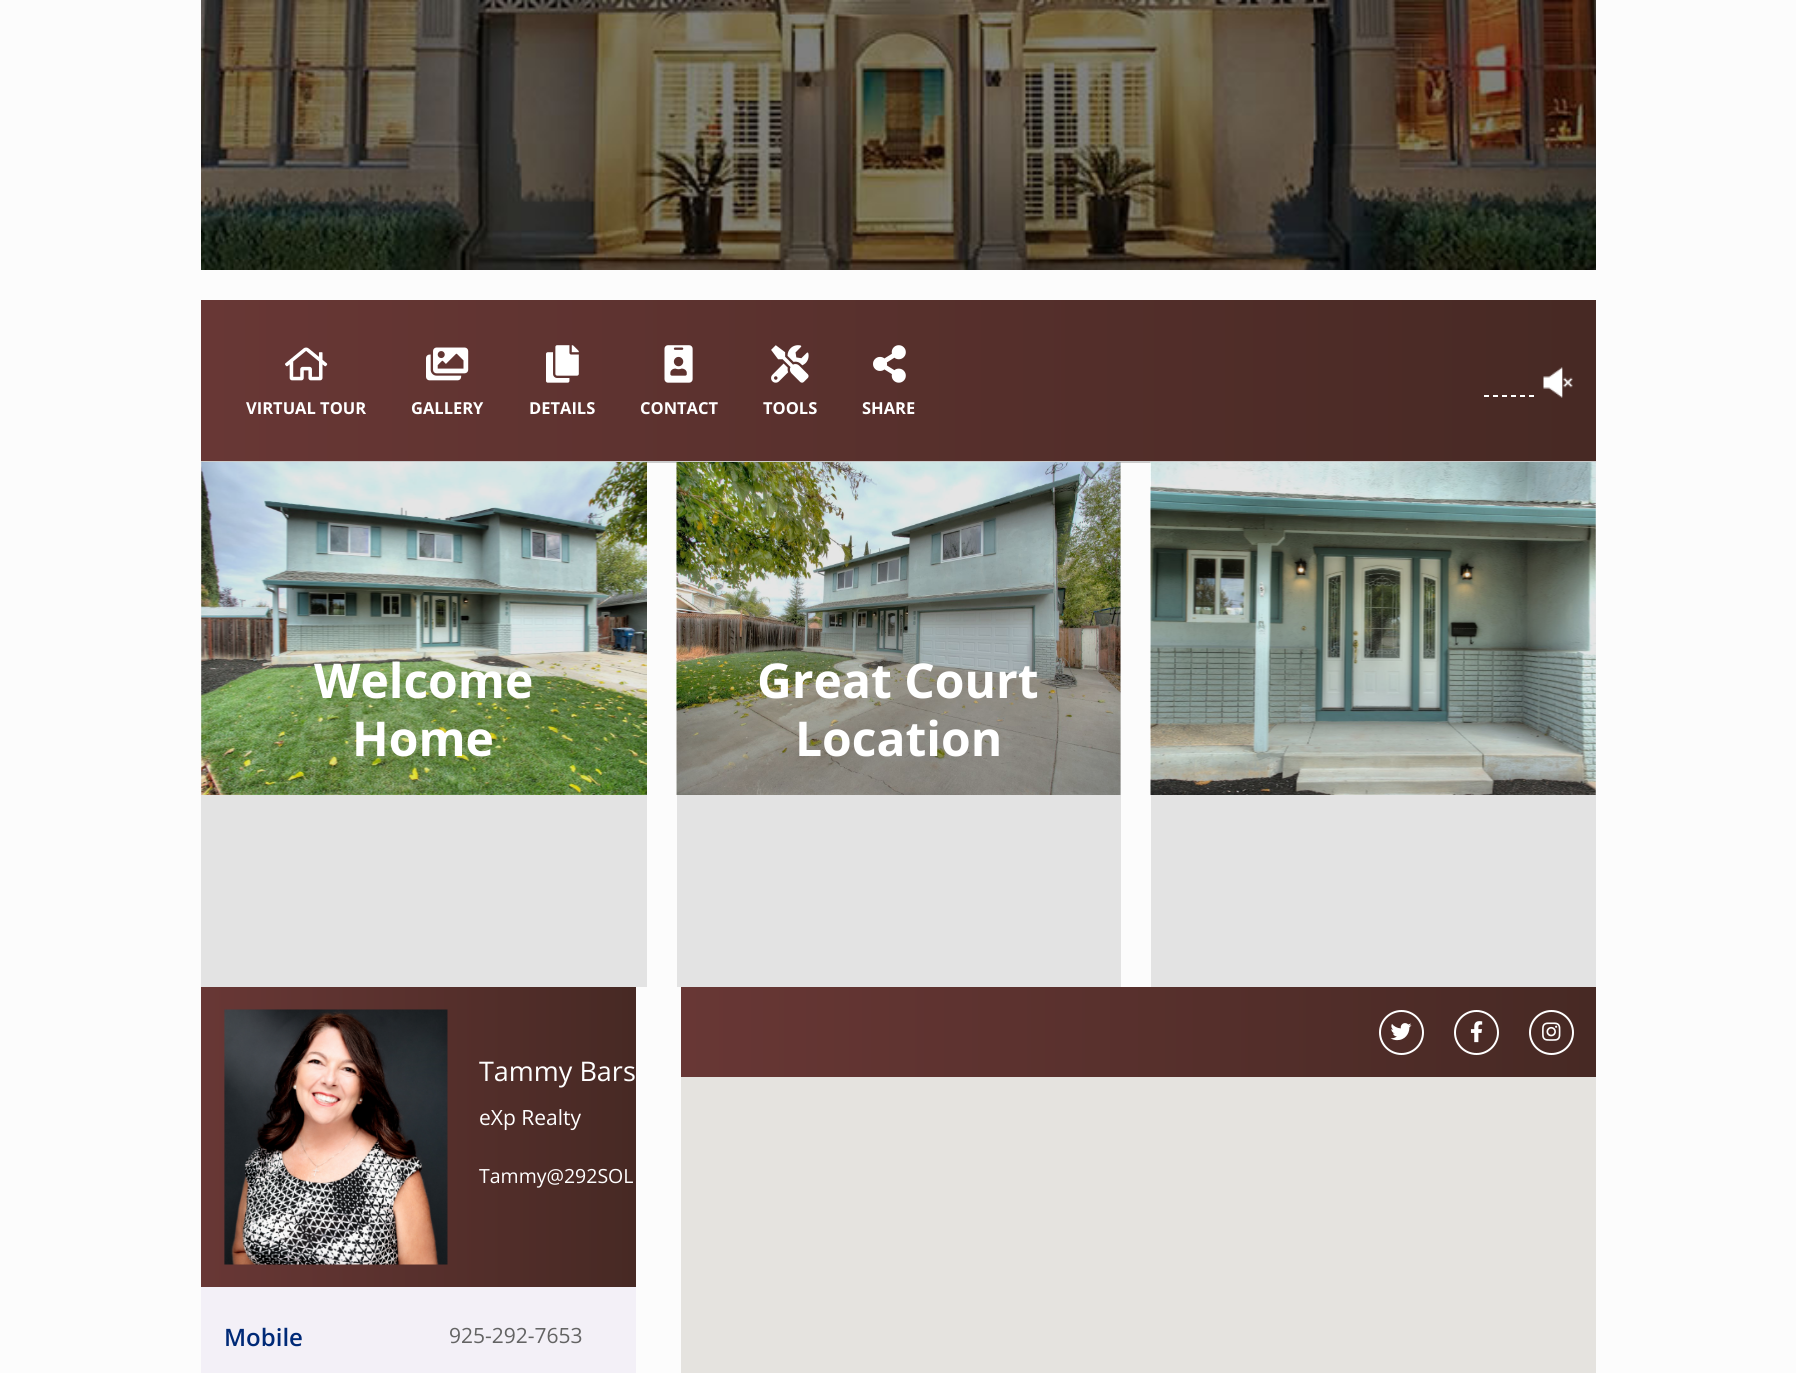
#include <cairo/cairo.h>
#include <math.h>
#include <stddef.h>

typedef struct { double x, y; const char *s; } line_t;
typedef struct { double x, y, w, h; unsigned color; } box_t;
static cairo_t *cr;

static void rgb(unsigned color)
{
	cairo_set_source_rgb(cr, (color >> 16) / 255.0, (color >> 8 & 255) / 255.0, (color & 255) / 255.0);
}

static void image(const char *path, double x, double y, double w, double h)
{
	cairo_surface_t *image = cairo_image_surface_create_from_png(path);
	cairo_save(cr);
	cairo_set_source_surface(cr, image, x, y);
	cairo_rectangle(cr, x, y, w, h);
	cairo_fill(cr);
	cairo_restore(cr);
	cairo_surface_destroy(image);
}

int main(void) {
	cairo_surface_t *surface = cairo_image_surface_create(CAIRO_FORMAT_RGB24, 1796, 1373);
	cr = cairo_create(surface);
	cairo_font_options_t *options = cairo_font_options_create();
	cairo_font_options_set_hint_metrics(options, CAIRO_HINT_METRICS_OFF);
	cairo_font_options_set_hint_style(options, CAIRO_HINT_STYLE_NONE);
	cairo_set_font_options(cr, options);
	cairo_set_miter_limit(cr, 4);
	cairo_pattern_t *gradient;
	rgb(0xfcfcfc);
	cairo_paint(cr);
	{
		static const box_t items[] = {
			{1151, 463, 445, 524, 0xe3e3e3},
			{677, 463, 444, 524, 0xe3e3e3},
			{201, 463, 446, 524, 0xe3e3e3},
		};
		for (size_t i = 0; i < sizeof items / sizeof *items; i++) {
			rgb(items[i].color);
			cairo_rectangle(cr, items[i].x, items[i].y, items[i].w, items[i].h);
			cairo_fill(cr);
		}
	}
	image("img/1.png", 201, 0, 1395, 270);
	gradient = cairo_pattern_create_linear(201, 380, 1596, 380);
	cairo_pattern_add_color_stop_rgba(gradient, 0, 0.408, 0.216, 0.208, 1);
	cairo_pattern_add_color_stop_rgba(gradient, 1, 0.278, 0.161, 0.141, 1);
	cairo_set_source(cr, gradient);
	cairo_pattern_destroy(gradient);
	cairo_rectangle(cr, 201, 300, 1395, 161);
	cairo_fill(cr);
	{
		static const box_t items[] = {
			{201, 461, 1395, 2, 0xcccccc},
			{1120, 462, 1, 1, 0xb8b8b8},
			{1484, 395, 5, 2, 0xffffff},
			{1493, 395, 5, 2, 0xffffff},
			{1502, 395, 5, 2, 0xffffff},
			{1511, 395, 5, 2, 0xffffff},
			{1520, 395, 5, 2, 0xffffff},
			{1529, 395, 5, 2, 0xffffff},
		};
		for (size_t i = 0; i < sizeof items / sizeof *items; i++) {
			rgb(items[i].color);
			cairo_rectangle(cr, items[i].x, items[i].y, items[i].w, items[i].h);
			cairo_fill(cr);
		}
	}
	image("img/2.png", 1543, 367, 30, 31);
	image("img/3.png", 285, 347, 43, 34);
	image("img/4.png", 426, 347, 43, 34);
	image("img/5.png", 546, 345, 33, 38);
	image("img/6.png", 664, 345, 29, 38);
	image("img/7.png", 771, 345, 38, 38);
	image("img/8.png", 873, 345, 33, 38);
	image("img/9.png", 201, 462, 446, 333);
	image("img/10.png", 676, 462, 445, 333);
	image("img/11.png", 1150, 462, 446, 333);
	rgb(0xf3f0f7);
	cairo_rectangle(cr, 201, 1287, 435, 86);
	cairo_fill(cr);
	gradient = cairo_pattern_create_linear(201, 1137, 636, 1137);
	cairo_pattern_add_color_stop_rgba(gradient, 0, 0.408, 0.216, 0.208, 1);
	cairo_pattern_add_color_stop_rgba(gradient, 1, 0.278, 0.161, 0.141, 1);
	cairo_set_source(cr, gradient);
	cairo_pattern_destroy(gradient);
	cairo_rectangle(cr, 201, 987, 435, 300);
	cairo_fill(cr);
	image("img/12.png", 224, 1009, 224, 256);
	gradient = cairo_pattern_create_linear(681, 1032, 1596, 1032);
	cairo_pattern_add_color_stop_rgba(gradient, 0, 0.408, 0.216, 0.208, 1);
	cairo_pattern_add_color_stop_rgba(gradient, 1, 0.278, 0.161, 0.141, 1);
	cairo_set_source(cr, gradient);
	cairo_pattern_destroy(gradient);
	cairo_rectangle(cr, 681, 987, 915, 90);
	cairo_fill(cr);
	cairo_arc(cr, 1401.5, 1032.5, 21.5, 0, 2 * M_PI);
	rgb(0xffffff);
	cairo_stroke(cr);
	image("img/13.png", 1390, 1023, 22, 18);
	cairo_arc(cr, 1476.5, 1032.5, 21.5, 0, 2 * M_PI);
	cairo_stroke(cr);
	image("img/14.png", 1470, 1021, 13, 22);
	cairo_arc(cr, 1551.5, 1032.5, 21.5, 0, 2 * M_PI);
	cairo_stroke(cr);
	image("img/15.png", 1542, 1022, 19, 19);
	rgb(0xe5e3df);
	cairo_rectangle(cr, 681, 1077, 915, 296);
	cairo_fill(cr);
	cairo_select_font_face(cr, "Open Sans", CAIRO_FONT_SLANT_NORMAL, CAIRO_FONT_WEIGHT_BOLD);
	cairo_set_font_size(cr, 16.5);
	rgb(0xffffff);
	{
		static const line_t items[] = {
			{246, 414, "VIRTUAL TOUR"},
			{411, 414, "GALLERY"},
			{529, 414, "DETAILS"},
			{640, 414, "CONTACT"},
			{763, 414, "TOOLS"},
			{862, 414, "SHARE"},
		};
		for (size_t i = 0; i < sizeof items / sizeof *items; i++) {
			cairo_move_to(cr, items[i].x, items[i].y);
			cairo_show_text(cr, items[i].s);
		}
	}
	cairo_set_font_size(cr, 48);
	{
		static const line_t items[] = {
			{314, 698, "Welcome"},
			{352, 756, "Home"},
			{757, 698, "Great Court"},
			{795, 756, "Location"},
		};
		for (size_t i = 0; i < sizeof items / sizeof *items; i++) {
			cairo_move_to(cr, items[i].x, items[i].y);
			cairo_show_text(cr, items[i].s);
		}
	}
	cairo_select_font_face(cr, "Open Sans", CAIRO_FONT_SLANT_NORMAL, CAIRO_FONT_WEIGHT_NORMAL);
	cairo_set_font_size(cr, 27);
	cairo_move_to(cr, 479, 1081);
	cairo_show_text(cr, "Tammy Bars");
	cairo_set_font_size(cr, 21);
	cairo_move_to(cr, 479, 1125);
	cairo_show_text(cr, "eXp Realty");
	cairo_set_font_size(cr, 19.5);
	cairo_move_to(cr, 479, 1183);
	cairo_show_text(cr, "Tammy@292SOL");
	cairo_select_font_face(cr, "Open Sans SemiBold", CAIRO_FONT_SLANT_NORMAL, CAIRO_FONT_WEIGHT_NORMAL);
	cairo_set_font_size(cr, 24);
	rgb(0x002a77);
	cairo_move_to(cr, 224, 1346);
	cairo_show_text(cr, "Mobile");
	cairo_select_font_face(cr, "Open Sans", CAIRO_FONT_SLANT_NORMAL, CAIRO_FONT_WEIGHT_NORMAL);
	cairo_set_font_size(cr, 21);
	rgb(0x636363);
	cairo_move_to(cr, 449, 1343);
	cairo_show_text(cr, "925-292-7653");
	cairo_surface_write_to_png(surface, "page.png");
	cairo_font_options_destroy(options);
	cairo_destroy(cr);
	cairo_surface_destroy(surface);
	return 0;
}
